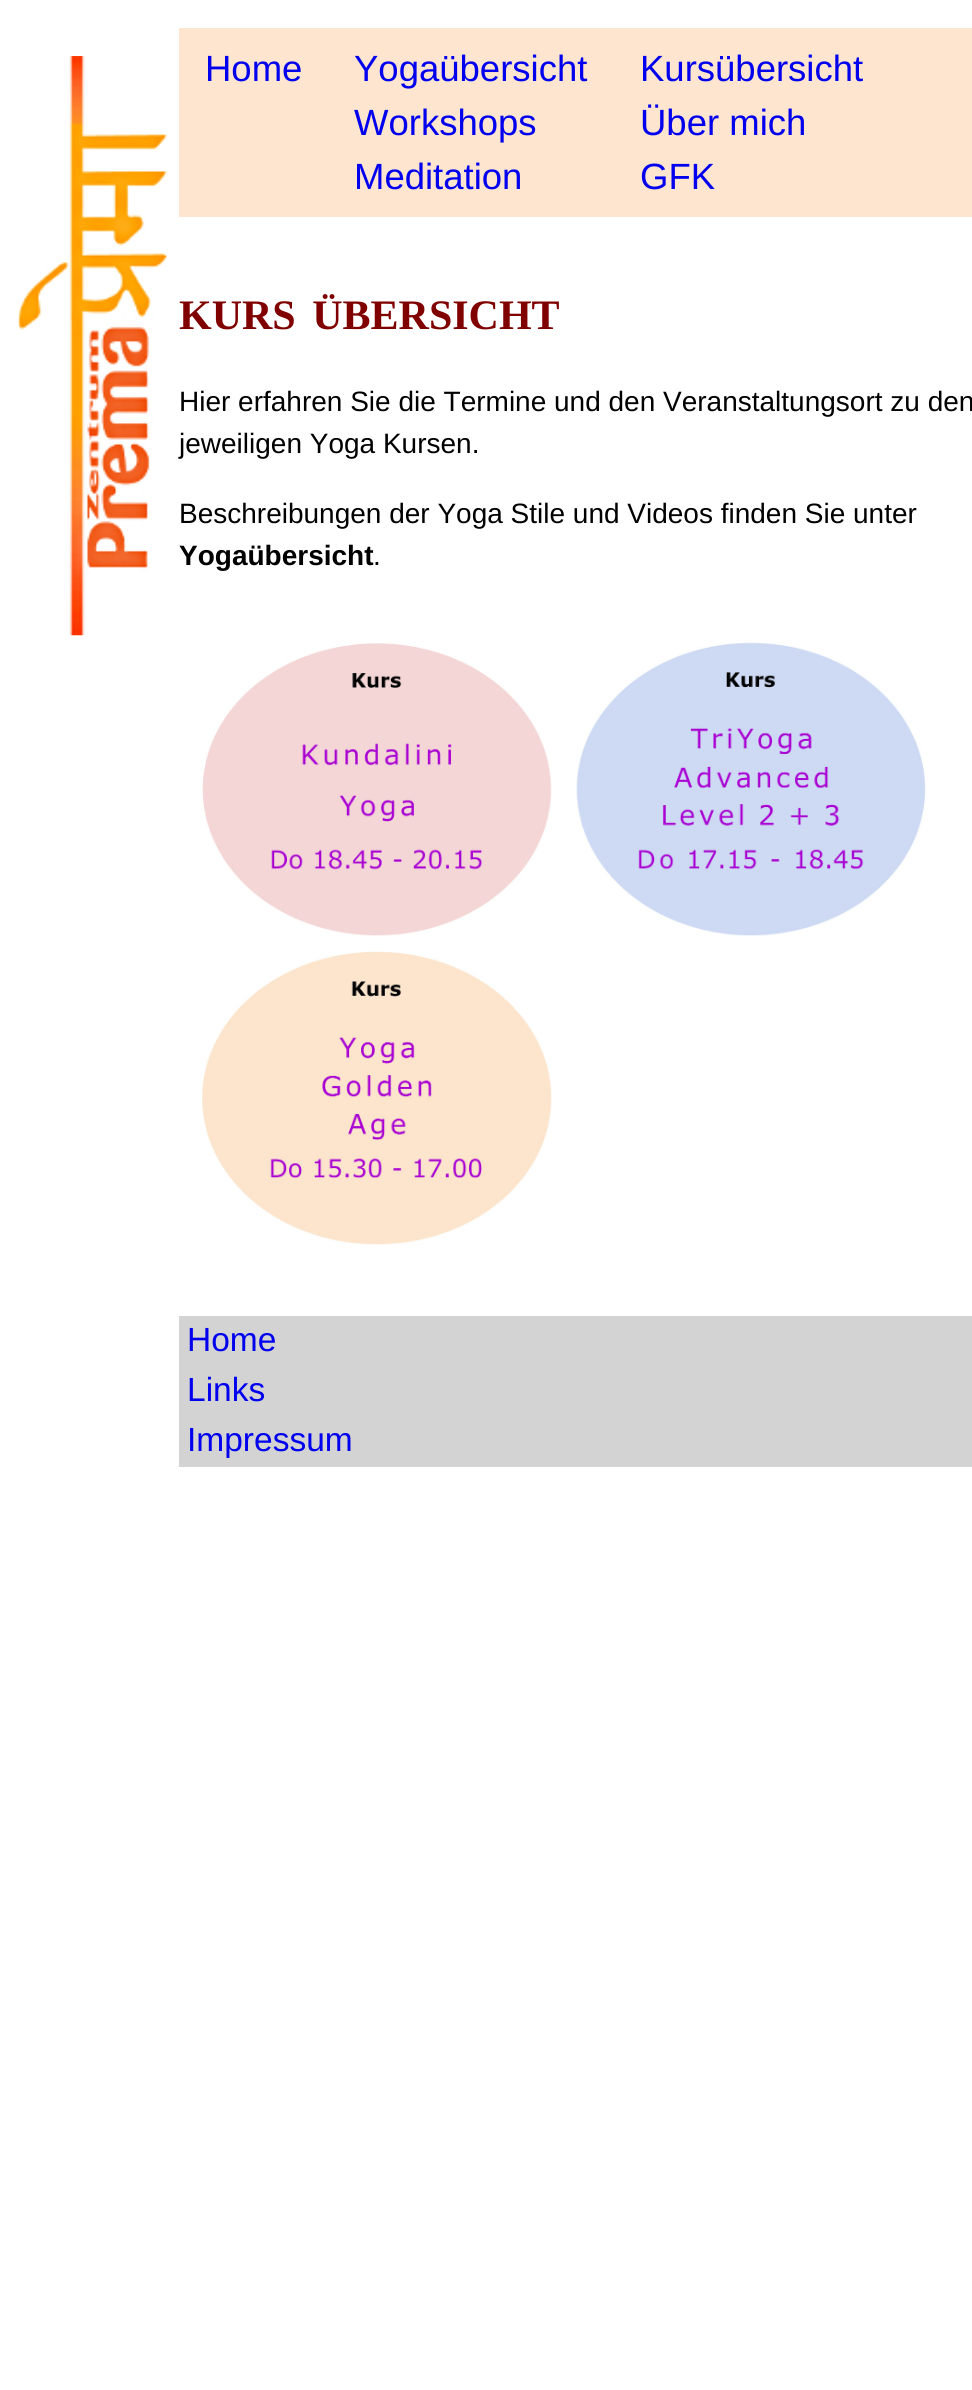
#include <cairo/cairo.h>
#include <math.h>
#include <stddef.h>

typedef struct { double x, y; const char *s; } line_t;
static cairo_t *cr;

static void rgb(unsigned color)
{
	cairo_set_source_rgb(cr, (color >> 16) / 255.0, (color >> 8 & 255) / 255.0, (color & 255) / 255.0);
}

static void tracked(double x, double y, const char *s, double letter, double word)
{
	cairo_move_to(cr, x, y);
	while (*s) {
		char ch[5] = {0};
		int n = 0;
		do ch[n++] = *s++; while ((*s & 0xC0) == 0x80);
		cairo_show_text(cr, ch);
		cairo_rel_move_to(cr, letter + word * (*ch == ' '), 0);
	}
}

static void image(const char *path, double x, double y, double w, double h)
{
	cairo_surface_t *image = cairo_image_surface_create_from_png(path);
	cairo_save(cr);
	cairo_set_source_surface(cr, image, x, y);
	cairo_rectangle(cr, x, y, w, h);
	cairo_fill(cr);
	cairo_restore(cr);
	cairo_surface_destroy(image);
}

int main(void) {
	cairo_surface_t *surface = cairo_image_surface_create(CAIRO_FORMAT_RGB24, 972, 2390);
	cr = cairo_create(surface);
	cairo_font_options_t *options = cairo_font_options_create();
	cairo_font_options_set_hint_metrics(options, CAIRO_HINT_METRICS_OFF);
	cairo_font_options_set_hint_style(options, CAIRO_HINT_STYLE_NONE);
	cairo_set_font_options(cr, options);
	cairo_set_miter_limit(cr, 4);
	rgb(0xffffff);
	cairo_paint(cr);
	image("img/1.png", 17, 56, 150, 580);
	rgb(0xfde5cf);
	cairo_rectangle(cr, 179, 28, 793, 189);
	cairo_fill(cr);
	image("img/2.png", 202, 643, 350, 293);
	image("img/3.png", 576, 642, 350, 294);
	image("img/4.png", 202, 951, 350, 294);
	rgb(0xd3d3d3);
	cairo_rectangle(cr, 179, 1316, 793, 151);
	cairo_fill(cr);
	cairo_select_font_face(cr, "Liberation Sans", CAIRO_FONT_SLANT_NORMAL, CAIRO_FONT_WEIGHT_NORMAL);
	cairo_set_font_size(cr, 36.5);
	rgb(0x0000ee);
	{
		static const line_t items[] = {
			{205, 81, "Home"},
			{354, 81, "Yogaübersicht"},
			{640, 81, "Kursübersicht"},
			{354, 135, "Workshops"},
			{640, 135, "Über mich"},
			{354, 189, "Meditation"},
			{640, 189, "GFK"},
		};
		for (size_t i = 0; i < sizeof items / sizeof *items; i++) {
			cairo_move_to(cr, items[i].x, items[i].y);
			cairo_show_text(cr, items[i].s);
		}
	}
	cairo_select_font_face(cr, "Liberation Serif", CAIRO_FONT_SLANT_NORMAL, CAIRO_FONT_WEIGHT_BOLD);
	cairo_set_font_size(cr, 42);
	rgb(0x800000);
	tracked(179, 329, "KURS ÜBERSICHT", 0, 6);
	cairo_select_font_face(cr, "Liberation Sans", CAIRO_FONT_SLANT_NORMAL, CAIRO_FONT_WEIGHT_NORMAL);
	cairo_set_font_size(cr, 28);
	rgb(0x000000);
	{
		static const line_t items[] = {
			{179, 411, "Hier erfahren Sie die Termine und den Veranstaltungsort zu den"},
			{179, 453, "jeweiligen Yoga Kursen."},
			{179, 523, "Beschreibungen der Yoga Stile und Videos finden Sie unter"},
		};
		for (size_t i = 0; i < sizeof items / sizeof *items; i++) {
			cairo_move_to(cr, items[i].x, items[i].y);
			cairo_show_text(cr, items[i].s);
		}
	}
	cairo_select_font_face(cr, "Liberation Sans", CAIRO_FONT_SLANT_NORMAL, CAIRO_FONT_WEIGHT_BOLD);
	cairo_move_to(cr, 179, 565);
	cairo_show_text(cr, "Yogaübersicht");
	cairo_select_font_face(cr, "Liberation Sans", CAIRO_FONT_SLANT_NORMAL, CAIRO_FONT_WEIGHT_NORMAL);
	cairo_move_to(cr, 373, 565);
	cairo_show_text(cr, ".");
	cairo_set_font_size(cr, 33.5);
	rgb(0x0000ee);
	{
		static const line_t items[] = {
			{187, 1351, "Home"},
			{187, 1401, "Links"},
			{187, 1451, "Impressum"},
		};
		for (size_t i = 0; i < sizeof items / sizeof *items; i++) {
			cairo_move_to(cr, items[i].x, items[i].y);
			cairo_show_text(cr, items[i].s);
		}
	}
	cairo_surface_write_to_png(surface, "page.png");
	cairo_font_options_destroy(options);
	cairo_destroy(cr);
	cairo_surface_destroy(surface);
	return 0;
}
